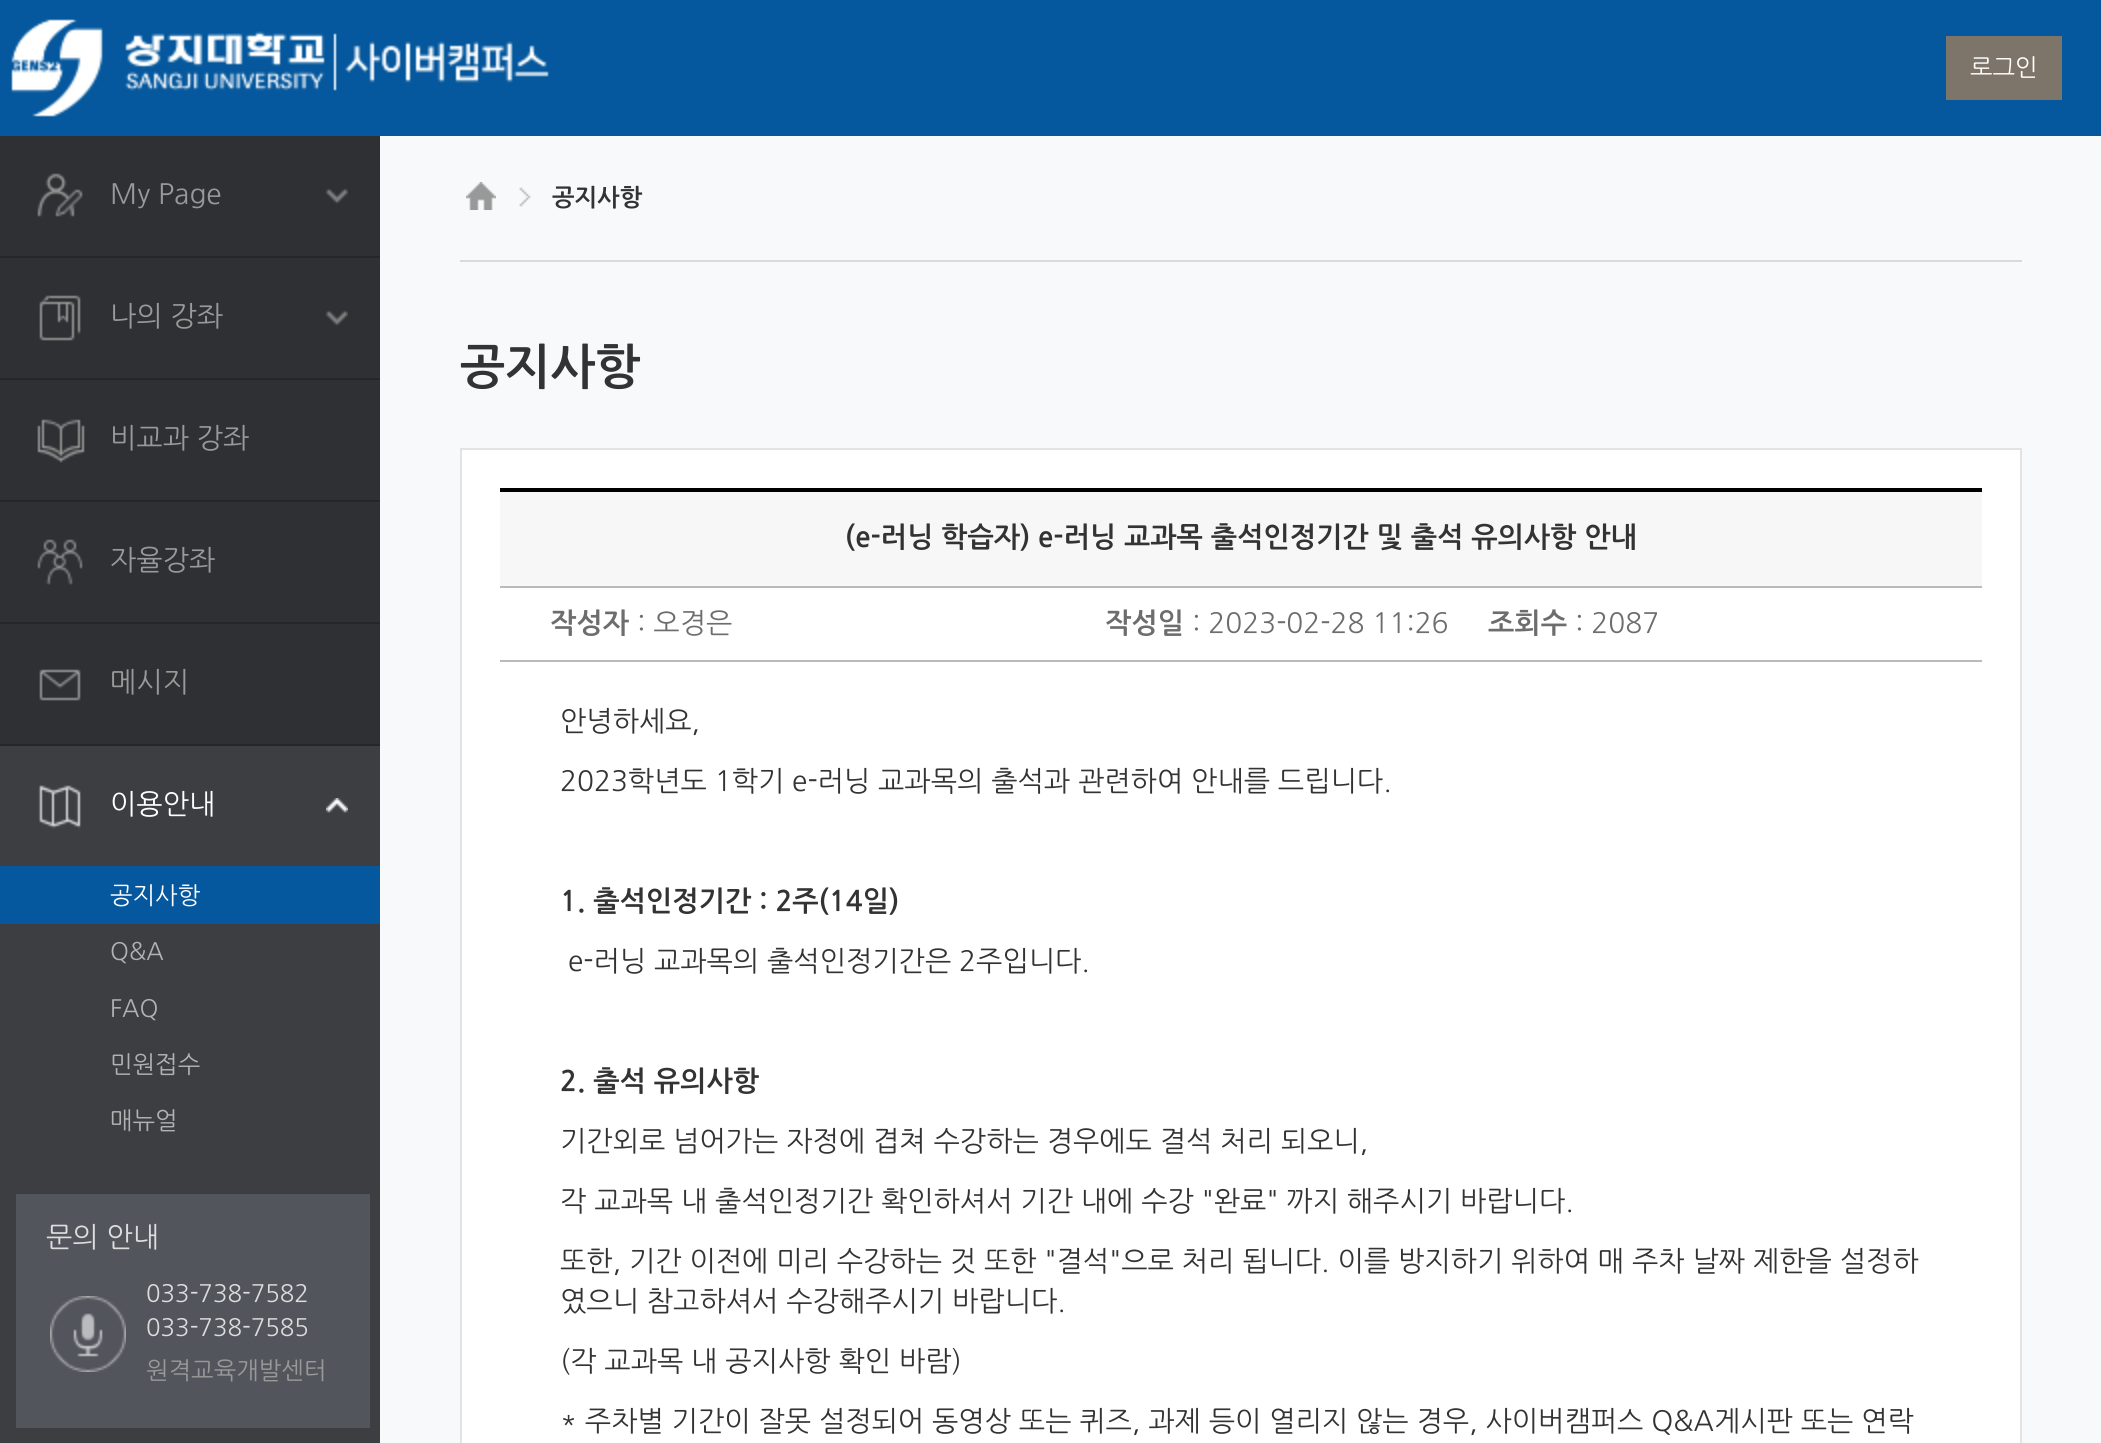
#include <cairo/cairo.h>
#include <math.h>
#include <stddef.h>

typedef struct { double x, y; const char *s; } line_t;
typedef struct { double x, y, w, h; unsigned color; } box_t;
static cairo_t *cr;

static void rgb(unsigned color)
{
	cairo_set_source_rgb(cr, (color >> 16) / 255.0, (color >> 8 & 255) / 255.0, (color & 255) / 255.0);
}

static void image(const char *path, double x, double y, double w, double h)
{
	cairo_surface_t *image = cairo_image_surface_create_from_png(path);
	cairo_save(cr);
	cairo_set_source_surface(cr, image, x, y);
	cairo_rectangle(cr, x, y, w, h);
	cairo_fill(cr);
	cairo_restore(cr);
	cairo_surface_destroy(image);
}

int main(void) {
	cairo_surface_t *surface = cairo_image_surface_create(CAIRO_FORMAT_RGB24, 2101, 1443);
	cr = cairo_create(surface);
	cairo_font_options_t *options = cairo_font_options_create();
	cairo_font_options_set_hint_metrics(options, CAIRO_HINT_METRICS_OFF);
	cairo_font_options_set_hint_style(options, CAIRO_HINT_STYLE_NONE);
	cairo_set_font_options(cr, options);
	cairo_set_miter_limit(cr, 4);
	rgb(0x2f3033);
	cairo_paint(cr);
	rgb(0x05589d);
	cairo_rectangle(cr, 0, 0, 2101, 136);
	cairo_fill(cr);
	image("img/1.png", 11, 19, 538, 98);
	rgb(0x7e756a);
	cairo_rectangle(cr, 1946, 36, 116, 64);
	cairo_fill(cr);
	rgb(0x252626);
	cairo_rectangle(cr, 0, 256, 380, 2);
	cairo_fill(cr);
	image("img/2.png", 37, 173, 46, 44);
	image("img/3.png", 326, 188, 22, 16);
	cairo_rectangle(cr, 0, 378, 380, 2);
	cairo_fill(cr);
	image("img/4.png", 39, 295, 42, 46);
	image("img/3.png", 326, 310, 22, 16);
	cairo_rectangle(cr, 0, 500, 380, 2);
	cairo_fill(cr);
	image("img/5.png", 37, 419, 48, 44);
	cairo_rectangle(cr, 0, 622, 380, 2);
	cairo_fill(cr);
	image("img/6.png", 37, 539, 46, 46);
	cairo_rectangle(cr, 0, 744, 380, 2);
	cairo_fill(cr);
	image("img/7.png", 39, 669, 42, 32);
	rgb(0x3d3e42);
	cairo_rectangle(cr, 0, 746, 380, 120);
	cairo_fill(cr);
	image("img/8.png", 38, 785, 43, 44);
	image("img/9.png", 326, 798, 22, 15);
	{
		static const box_t items[] = {
			{0, 924, 380, 519, 0x3d3e42},
			{0, 866, 380, 58, 0x05589d},
			{16, 1194, 354, 234, 0x53555c},
		};
		for (size_t i = 0; i < sizeof items / sizeof *items; i++) {
			rgb(items[i].color);
			cairo_rectangle(cr, items[i].x, items[i].y, items[i].w, items[i].h);
			cairo_fill(cr);
		}
	}
	image("img/10.png", 50, 1296, 76, 76);
	rgb(0xf7f9fa);
	cairo_rectangle(cr, 380, 136, 1721, 1307);
	cairo_fill(cr);
	rgb(0xd9dbdb);
	cairo_rectangle(cr, 460, 260, 1562, 2);
	cairo_fill(cr);
	image("img/11.png", 466, 182, 30, 28);
	image("img/12.png", 519, 187, 12, 20);
	rgb(0xffffff);
	cairo_rectangle(cr, 461, 449, 1560, 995);
	cairo_fill_preserve(cr);
	rgb(0xe3e3e3);
	cairo_stroke(cr);
	{
		static const box_t items[] = {
			{500, 492, 1482, 94, 0xf7f7f7},
			{500, 488, 1482, 4, 0x000000},
			{500, 586, 1482, 2, 0xbababa},
			{500, 660, 1482, 2, 0xbababa},
		};
		for (size_t i = 0; i < sizeof items / sizeof *items; i++) {
			rgb(items[i].color);
			cairo_rectangle(cr, items[i].x, items[i].y, items[i].w, items[i].h);
			cairo_fill(cr);
		}
	}
	cairo_select_font_face(cr, "NanumGothic", CAIRO_FONT_SLANT_NORMAL, CAIRO_FONT_WEIGHT_NORMAL);
	cairo_set_font_size(cr, 24);
	rgb(0xffffff);
	cairo_move_to(cr, 1970, 76);
	cairo_show_text(cr, "로그인");
	cairo_set_font_size(cr, 28);
	rgb(0x999999);
	{
		static const line_t items[] = {
			{110, 204, "My Page"},
			{110, 326, "나의 강좌"},
			{110, 448, "비교과 강좌"},
			{110, 570, "자율강좌"},
			{110, 692, "메시지"},
		};
		for (size_t i = 0; i < sizeof items / sizeof *items; i++) {
			cairo_move_to(cr, items[i].x, items[i].y);
			cairo_show_text(cr, items[i].s);
		}
	}
	rgb(0xffffff);
	cairo_move_to(cr, 110, 814);
	cairo_show_text(cr, "이용안내");
	cairo_set_font_size(cr, 24);
	cairo_move_to(cr, 110, 904);
	cairo_show_text(cr, "공지사항");
	rgb(0xb2b2b2);
	{
		static const line_t items[] = {
			{110, 960, "Q&A"},
			{110, 1017, "FAQ"},
			{110, 1073, "민원접수"},
			{110, 1129, "매뉴얼"},
		};
		for (size_t i = 0; i < sizeof items / sizeof *items; i++) {
			cairo_move_to(cr, items[i].x, items[i].y);
			cairo_show_text(cr, items[i].s);
		}
	}
	cairo_set_font_size(cr, 28);
	rgb(0xddddde);
	cairo_move_to(cr, 46, 1247);
	cairo_show_text(cr, "문의 안내");
	cairo_set_font_size(cr, 24);
	cairo_move_to(cr, 146, 1302);
	cairo_show_text(cr, "033-738-7582");
	cairo_move_to(cr, 146, 1336);
	cairo_show_text(cr, "033-738-7585");
	rgb(0x999999);
	cairo_move_to(cr, 146, 1379);
	cairo_show_text(cr, "원격교육개발센터");
	cairo_select_font_face(cr, "NanumGothic", CAIRO_FONT_SLANT_NORMAL, CAIRO_FONT_WEIGHT_BOLD);
	rgb(0x333333);
	cairo_move_to(cr, 552, 206);
	cairo_show_text(cr, "공지사항");
	cairo_set_font_size(cr, 48);
	cairo_move_to(cr, 460, 384);
	cairo_show_text(cr, "공지사항");
	cairo_set_font_size(cr, 28);
	cairo_move_to(cr, 845, 547);
	cairo_show_text(cr, "(e-러닝 학습자) e-러닝 교과목 출석인정기간 및 출석 유의사항 안내");
	rgb(0x6d6d6d);
	cairo_move_to(cr, 550, 633);
	cairo_show_text(cr, "작성자");
	cairo_select_font_face(cr, "NanumGothic", CAIRO_FONT_SLANT_NORMAL, CAIRO_FONT_WEIGHT_NORMAL);
	cairo_move_to(cr, 637, 633);
	cairo_show_text(cr, ": 오경은");
	cairo_select_font_face(cr, "NanumGothic", CAIRO_FONT_SLANT_NORMAL, CAIRO_FONT_WEIGHT_BOLD);
	cairo_move_to(cr, 1105, 633);
	cairo_show_text(cr, "작성일");
	cairo_select_font_face(cr, "NanumGothic", CAIRO_FONT_SLANT_NORMAL, CAIRO_FONT_WEIGHT_NORMAL);
	cairo_move_to(cr, 1192, 633);
	cairo_show_text(cr, ": 2023-02-28 11:26");
	cairo_select_font_face(cr, "NanumGothic", CAIRO_FONT_SLANT_NORMAL, CAIRO_FONT_WEIGHT_BOLD);
	cairo_move_to(cr, 1488, 633);
	cairo_show_text(cr, "조회수");
	cairo_select_font_face(cr, "NanumGothic", CAIRO_FONT_SLANT_NORMAL, CAIRO_FONT_WEIGHT_NORMAL);
	cairo_move_to(cr, 1575, 633);
	cairo_show_text(cr, ": 2087");
	rgb(0x333333);
	cairo_move_to(cr, 560, 731);
	cairo_show_text(cr, "안녕하세요,");
	cairo_move_to(cr, 560, 791);
	cairo_show_text(cr, "2023학년도 1학기 e-러닝 교과목의 출석과 관련하여 안내를 드립니다.");
	cairo_select_font_face(cr, "NanumGothic", CAIRO_FONT_SLANT_NORMAL, CAIRO_FONT_WEIGHT_BOLD);
	cairo_move_to(cr, 560, 911);
	cairo_show_text(cr, "1. 출석인정기간 : 2주(14일)");
	cairo_select_font_face(cr, "NanumGothic", CAIRO_FONT_SLANT_NORMAL, CAIRO_FONT_WEIGHT_NORMAL);
	cairo_move_to(cr, 568, 971);
	cairo_show_text(cr, "e-러닝 교과목의 출석인정기간은 2주입니다.");
	cairo_select_font_face(cr, "NanumGothic", CAIRO_FONT_SLANT_NORMAL, CAIRO_FONT_WEIGHT_BOLD);
	cairo_move_to(cr, 560, 1091);
	cairo_show_text(cr, "2. 출석 유의사항");
	cairo_select_font_face(cr, "NanumGothic", CAIRO_FONT_SLANT_NORMAL, CAIRO_FONT_WEIGHT_NORMAL);
	{
		static const line_t items[] = {
			{560, 1151, "기간외로 넘어가는 자정에 겹쳐 수강하는 경우에도 결석 처리 되오니,"},
			{560, 1211, "각 교과목 내 출석인정기간 확인하셔서 기간 내에 수강 \"완료\" 까지 해주시기 바랍니다."},
			{560, 1271, "또한, 기간 이전에 미리 수강하는 것 또한 \"결석\"으로 처리 됩니다. 이를 방지하기 위하여 매 주차 날짜 제한을 설정하"},
			{560, 1311, "였으니 참고하셔서 수강해주시기 바랍니다."},
			{560, 1371, "(각 교과목 내 공지사항 확인 바람)"},
			{560, 1431, "* 주차별 기간이 잘못 설정되어 동영상 또는 퀴즈, 과제 등이 열리지 않는 경우, 사이버캠퍼스 Q&A게시판 또는 연락"},
		};
		for (size_t i = 0; i < sizeof items / sizeof *items; i++) {
			cairo_move_to(cr, items[i].x, items[i].y);
			cairo_show_text(cr, items[i].s);
		}
	}
	cairo_surface_write_to_png(surface, "page.png");
	cairo_font_options_destroy(options);
	cairo_destroy(cr);
	cairo_surface_destroy(surface);
	return 0;
}
